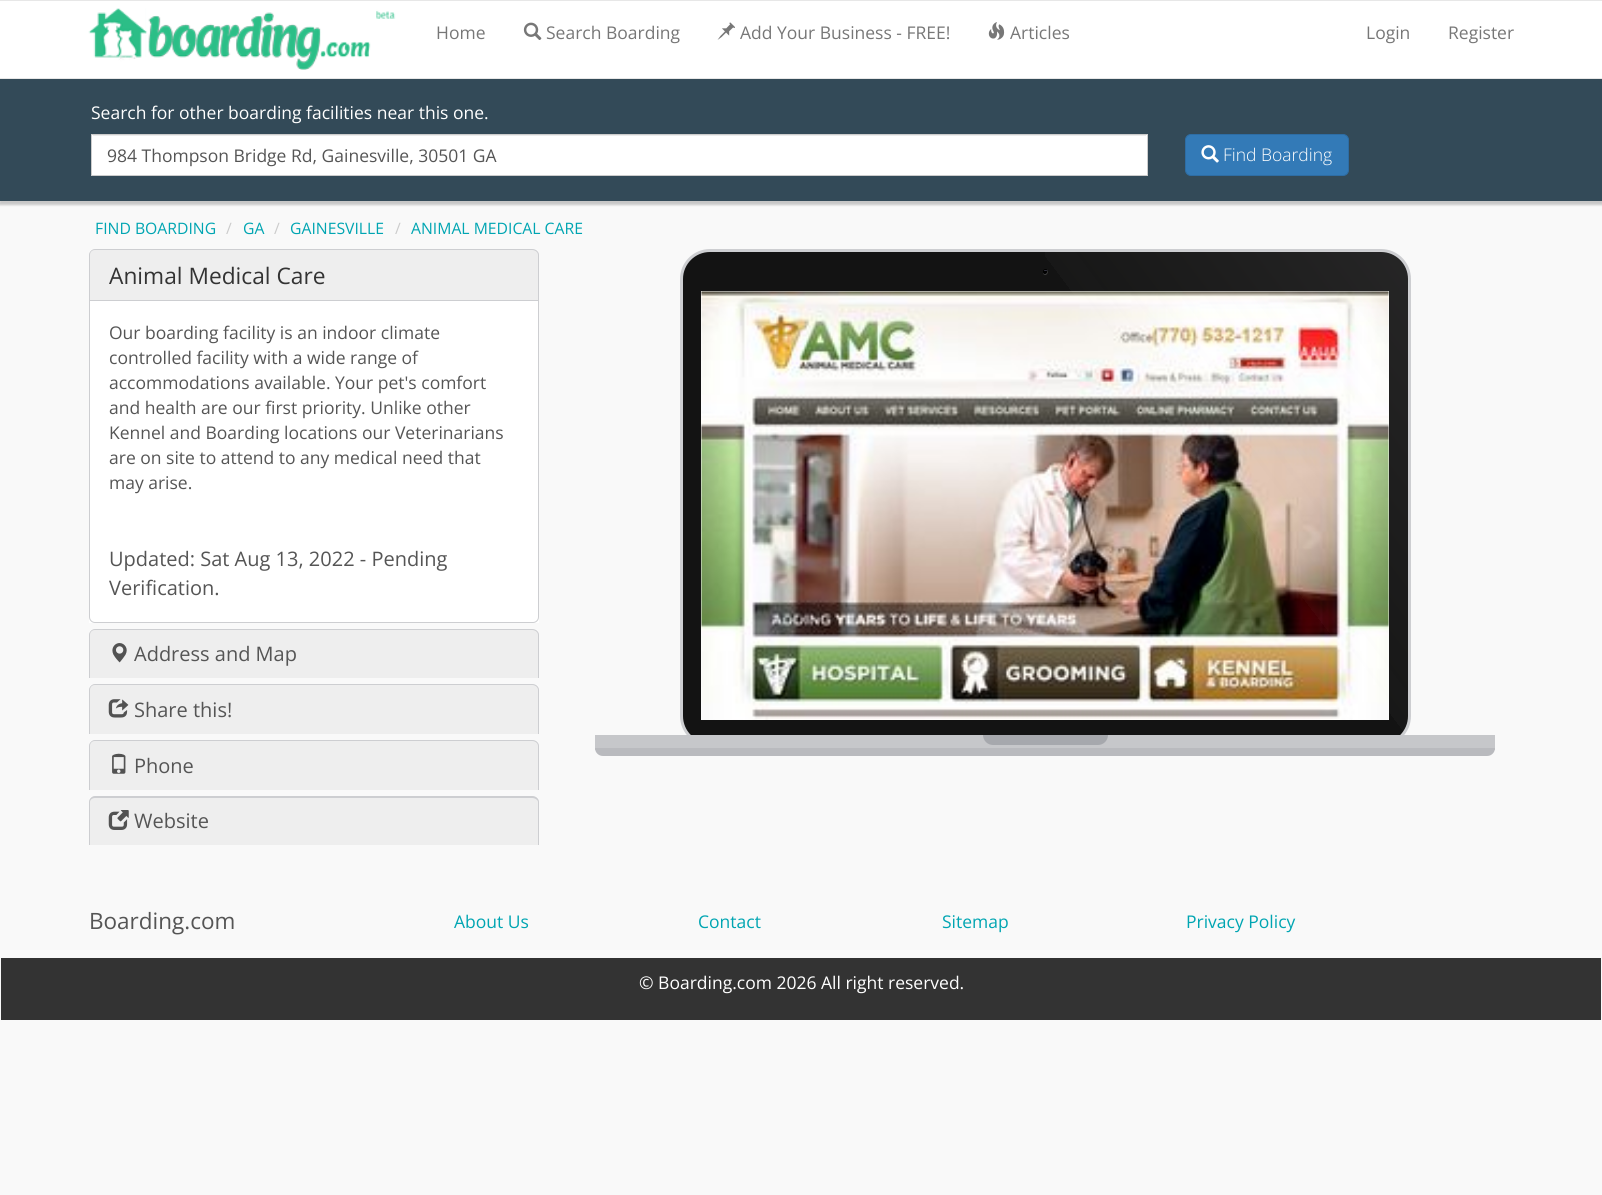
#include <cairo/cairo.h>
#include <math.h>
#include <stddef.h>

typedef struct { double x, y; const char *s; } line_t;
typedef struct { double x, y, w, h; unsigned color; } box_t;
static cairo_t *cr;

static void rgb(unsigned color)
{
	cairo_set_source_rgb(cr, (color >> 16) / 255.0, (color >> 8 & 255) / 255.0, (color & 255) / 255.0);
}

static void rrect(double x, double y, double w, double h, double r)
{
	cairo_new_sub_path(cr);
	cairo_arc(cr, x + w - r, y + h - r, r, 0, M_PI / 2);
	cairo_arc(cr, x + r, y + h - r, r, M_PI / 2, M_PI);
	cairo_arc(cr, x + r, y + r, r, M_PI, 1.5 * M_PI);
	cairo_arc(cr, x + w - r, y + r, r, 1.5 * M_PI, 2 * M_PI);
	cairo_close_path(cr);
}

static void soft_shadow(double x, double y, double w, double h, double r, double blur, double alpha)
{
	cairo_push_group_with_content(cr, CAIRO_CONTENT_ALPHA);
	cairo_set_operator(cr, CAIRO_OPERATOR_SOURCE);
	for (int i = 15; i >= -15 && fmin(w, h) + blur * i / 3 > 0; i -= 2) {
		double e = blur * i / 6;
		cairo_set_source_rgba(cr, 0, 0, 0, alpha * erfc((i - 1) / 8.5) / 2);
		rrect(x - e, y - e, w + 2 * e, h + 2 * e, fmax(0, fmin(r + e + blur * .6, fmin(w, h) / 2 + e)));
		cairo_fill(cr);
	}
	cairo_pattern_t *soft = cairo_pop_group(cr);
	cairo_mask(cr, soft);
	cairo_pattern_destroy(soft);
}

static void image(const char *path, double x, double y, double w, double h)
{
	cairo_surface_t *image = cairo_image_surface_create_from_png(path);
	cairo_save(cr);
	cairo_set_source_surface(cr, image, x, y);
	cairo_rectangle(cr, x, y, w, h);
	cairo_fill(cr);
	cairo_restore(cr);
	cairo_surface_destroy(image);
}

int main(void) {
	cairo_surface_t *surface = cairo_image_surface_create(CAIRO_FORMAT_RGB24, 1602, 1195);
	cr = cairo_create(surface);
	cairo_font_options_t *options = cairo_font_options_create();
	cairo_font_options_set_hint_metrics(options, CAIRO_HINT_METRICS_OFF);
	cairo_font_options_set_hint_style(options, CAIRO_HINT_STYLE_NONE);
	cairo_set_font_options(cr, options);
	cairo_set_miter_limit(cr, 4);
	cairo_pattern_t *gradient;
	rgb(0xf9f9f9);
	cairo_paint(cr);
	rgb(0x000000);
	soft_shadow(-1, 76, 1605, 129, 0, 1, 0.2);
	{
		static const box_t items[] = {
			{0, 1, 1602, 77, 0xffffff},
			{0, 0, 1602, 1, 0xe7e7e7},
			{0, 78, 1602, 1, 0xe7e7e7},
		};
		for (size_t i = 0; i < sizeof items / sizeof *items; i++) {
			rgb(items[i].color);
			cairo_rectangle(cr, items[i].x, items[i].y, items[i].w, items[i].h);
			cairo_fill(cr);
		}
	}
	image("img/1.png", 88, 8, 308, 62);
	image("img/2.png", 523, 22, 19, 18);
	image("img/3.png", 717, 22, 18, 18);
	image("img/4.png", 988, 22, 17, 18);
	{
		static const box_t items[] = {
			{0, 79, 1602, 122, 0x334a58},
			{92, 135, 1055, 40, 0xffffff},
			{93, 135, 1053, 1, 0xececec},
		};
		for (size_t i = 0; i < sizeof items / sizeof *items; i++) {
			rgb(items[i].color);
			cairo_rectangle(cr, items[i].x, items[i].y, items[i].w, items[i].h);
			cairo_fill(cr);
		}
	}
	cairo_rectangle(cr, 91.5, 134.5, 1056, 41);
	rgb(0xcccccc);
	cairo_set_line_width(cr, 1);
	cairo_stroke(cr);
	rgb(0x337ab7);
	rrect(1185.5, 134.5, 163, 41, 5.5);
	cairo_fill_preserve(cr);
	rgb(0x2e6da4);
	cairo_stroke(cr);
	image("img/5.png", 1201, 145, 18, 18);
	rgb(0xffffff);
	cairo_new_path(cr);
	cairo_move_to(cr, 94, 249);
	cairo_line_to(cr, 534, 249);
	cairo_curve_to(cr, 537, 249, 539, 251, 539, 254);
	cairo_line_to(cr, 539, 623);
	cairo_line_to(cr, 89, 623);
	cairo_line_to(cr, 89, 254);
	cairo_curve_to(cr, 89, 251, 91, 249, 94, 249);
	cairo_close_path(cr);
	cairo_fill(cr);
	rgb(0xeeeeee);
	cairo_new_path(cr);
	cairo_move_to(cr, 95, 249);
	cairo_line_to(cr, 533, 249);
	cairo_curve_to(cr, 536.5, 249, 539, 251.5, 539, 255);
	cairo_line_to(cr, 539, 300);
	cairo_line_to(cr, 89, 300);
	cairo_line_to(cr, 89, 255);
	cairo_curve_to(cr, 89, 251.5, 91.5, 249, 95, 249);
	cairo_close_path(cr);
	cairo_fill(cr);
	rgb(0xcdced1);
	cairo_set_fill_rule(cr, CAIRO_FILL_RULE_EVEN_ODD);
	cairo_new_path(cr);
	cairo_move_to(cr, 95, 249);
	cairo_line_to(cr, 532, 249);
	cairo_curve_to(cr, 536, 249, 539, 252, 539, 255);
	cairo_line_to(cr, 539, 300);
	cairo_line_to(cr, 89, 300);
	cairo_line_to(cr, 89, 255);
	cairo_curve_to(cr, 89, 252, 92, 249, 95, 249);
	cairo_close_path(cr);
	cairo_move_to(cr, 95, 250);
	cairo_line_to(cr, 532, 250);
	cairo_curve_to(cr, 535, 250, 538, 252, 538, 255);
	cairo_line_to(cr, 538, 300);
	cairo_line_to(cr, 90, 300);
	cairo_line_to(cr, 90, 255);
	cairo_curve_to(cr, 90, 252, 92, 250, 95, 250);
	cairo_close_path(cr);
	cairo_fill(cr);
	cairo_new_path(cr);
	cairo_move_to(cr, 89.5, 300.5);
	cairo_line_to(cr, 538.5, 300.5);
	cairo_line_to(cr, 538.5, 617);
	cairo_curve_to(cr, 538.5, 620, 536, 622.5, 533, 622.5);
	cairo_line_to(cr, 95, 622.5);
	cairo_curve_to(cr, 92, 622.5, 89.5, 620, 89.5, 617);
	cairo_close_path(cr);
	cairo_stroke(cr);
	rgb(0xffffff);
	cairo_new_path(cr);
	cairo_move_to(cr, 94, 629);
	cairo_line_to(cr, 534, 629);
	cairo_curve_to(cr, 537, 629, 539, 631, 539, 634);
	cairo_line_to(cr, 539, 678);
	cairo_line_to(cr, 89, 678);
	cairo_line_to(cr, 89, 634);
	cairo_curve_to(cr, 89, 631, 91, 629, 94, 629);
	cairo_close_path(cr);
	cairo_fill(cr);
	rgb(0xeeeeee);
	cairo_new_path(cr);
	cairo_move_to(cr, 95, 629);
	cairo_line_to(cr, 533, 629);
	cairo_curve_to(cr, 536.5, 629, 539, 631.5, 539, 635);
	cairo_line_to(cr, 539, 678);
	cairo_line_to(cr, 89, 678);
	cairo_line_to(cr, 89, 635);
	cairo_curve_to(cr, 89, 631.5, 91.5, 629, 95, 629);
	cairo_close_path(cr);
	cairo_fill(cr);
	rgb(0xcdced1);
	cairo_new_path(cr);
	cairo_move_to(cr, 95, 629);
	cairo_line_to(cr, 532, 629);
	cairo_curve_to(cr, 536, 629, 539, 632, 539, 635);
	cairo_line_to(cr, 539, 678);
	cairo_line_to(cr, 89, 678);
	cairo_line_to(cr, 89, 635);
	cairo_curve_to(cr, 89, 632, 92, 629, 95, 629);
	cairo_close_path(cr);
	cairo_move_to(cr, 95, 630);
	cairo_line_to(cr, 532, 630);
	cairo_curve_to(cr, 535, 630, 538, 632, 538, 635);
	cairo_line_to(cr, 538, 678);
	cairo_line_to(cr, 90, 678);
	cairo_line_to(cr, 90, 635);
	cairo_curve_to(cr, 90, 632, 92, 630, 95, 630);
	cairo_close_path(cr);
	cairo_fill(cr);
	image("img/6.png", 112, 643, 15, 20);
	rgb(0xffffff);
	cairo_new_path(cr);
	cairo_move_to(cr, 94, 684);
	cairo_line_to(cr, 534, 684);
	cairo_curve_to(cr, 537, 684, 539, 686, 539, 689);
	cairo_line_to(cr, 539, 734);
	cairo_line_to(cr, 89, 734);
	cairo_line_to(cr, 89, 689);
	cairo_curve_to(cr, 89, 686, 91, 684, 94, 684);
	cairo_close_path(cr);
	cairo_fill(cr);
	rgb(0xeeeeee);
	cairo_new_path(cr);
	cairo_move_to(cr, 95, 684);
	cairo_line_to(cr, 533, 684);
	cairo_curve_to(cr, 536.5, 684, 539, 686.5, 539, 690);
	cairo_line_to(cr, 539, 734);
	cairo_line_to(cr, 89, 734);
	cairo_line_to(cr, 89, 690);
	cairo_curve_to(cr, 89, 686.5, 91.5, 684, 95, 684);
	cairo_close_path(cr);
	cairo_fill(cr);
	rgb(0xcdced1);
	cairo_new_path(cr);
	cairo_move_to(cr, 95, 684);
	cairo_line_to(cr, 532, 684);
	cairo_curve_to(cr, 536, 684, 539, 687, 539, 690);
	cairo_line_to(cr, 539, 734);
	cairo_line_to(cr, 89, 734);
	cairo_line_to(cr, 89, 690);
	cairo_curve_to(cr, 89, 687, 92, 684, 95, 684);
	cairo_close_path(cr);
	cairo_move_to(cr, 95, 685);
	cairo_line_to(cr, 532, 685);
	cairo_curve_to(cr, 535, 685, 538, 687, 538, 690);
	cairo_line_to(cr, 538, 734);
	cairo_line_to(cr, 90, 734);
	cairo_line_to(cr, 90, 690);
	cairo_curve_to(cr, 90, 687, 92, 685, 95, 685);
	cairo_close_path(cr);
	cairo_fill(cr);
	image("img/7.png", 108, 699, 21, 19);
	rgb(0xffffff);
	cairo_new_path(cr);
	cairo_move_to(cr, 94, 740);
	cairo_line_to(cr, 534, 740);
	cairo_curve_to(cr, 537, 740, 539, 742, 539, 745);
	cairo_line_to(cr, 539, 790);
	cairo_line_to(cr, 89, 790);
	cairo_line_to(cr, 89, 745);
	cairo_curve_to(cr, 89, 742, 91, 740, 94, 740);
	cairo_close_path(cr);
	cairo_fill(cr);
	rgb(0xeeeeee);
	cairo_new_path(cr);
	cairo_move_to(cr, 95, 740);
	cairo_line_to(cr, 533, 740);
	cairo_curve_to(cr, 536.5, 740, 539, 742.5, 539, 746);
	cairo_line_to(cr, 539, 790);
	cairo_line_to(cr, 89, 790);
	cairo_line_to(cr, 89, 746);
	cairo_curve_to(cr, 89, 742.5, 91.5, 740, 95, 740);
	cairo_close_path(cr);
	cairo_fill(cr);
	rgb(0xcdced1);
	cairo_new_path(cr);
	cairo_move_to(cr, 95, 740);
	cairo_line_to(cr, 532, 740);
	cairo_curve_to(cr, 536, 740, 539, 743, 539, 746);
	cairo_line_to(cr, 539, 790);
	cairo_line_to(cr, 89, 790);
	cairo_line_to(cr, 89, 746);
	cairo_curve_to(cr, 89, 743, 92, 740, 95, 740);
	cairo_close_path(cr);
	cairo_move_to(cr, 95, 741);
	cairo_line_to(cr, 532, 741);
	cairo_curve_to(cr, 535, 741, 538, 743, 538, 746);
	cairo_line_to(cr, 538, 790);
	cairo_line_to(cr, 90, 790);
	cairo_line_to(cr, 90, 746);
	cairo_curve_to(cr, 90, 743, 92, 741, 95, 741);
	cairo_close_path(cr);
	cairo_fill(cr);
	image("img/8.png", 112, 753, 14, 21);
	rgb(0xffffff);
	cairo_new_path(cr);
	cairo_move_to(cr, 94, 796);
	cairo_line_to(cr, 534, 796);
	cairo_curve_to(cr, 537, 796, 539, 798, 539, 801);
	cairo_line_to(cr, 539, 845);
	cairo_line_to(cr, 89, 845);
	cairo_line_to(cr, 89, 801);
	cairo_curve_to(cr, 89, 798, 91, 796, 94, 796);
	cairo_close_path(cr);
	cairo_fill(cr);
	rgb(0xeeeeee);
	cairo_new_path(cr);
	cairo_move_to(cr, 95, 796);
	cairo_line_to(cr, 533, 796);
	cairo_curve_to(cr, 536.5, 796, 539, 798.5, 539, 802);
	cairo_line_to(cr, 539, 845);
	cairo_line_to(cr, 89, 845);
	cairo_line_to(cr, 89, 802);
	cairo_curve_to(cr, 89, 798.5, 91.5, 796, 95, 796);
	cairo_close_path(cr);
	cairo_fill(cr);
	rgb(0xcdced1);
	cairo_new_path(cr);
	cairo_move_to(cr, 95, 796);
	cairo_line_to(cr, 532, 796);
	cairo_curve_to(cr, 536, 796, 539, 799, 539, 802);
	cairo_line_to(cr, 539, 845);
	cairo_line_to(cr, 89, 845);
	cairo_line_to(cr, 89, 802);
	cairo_curve_to(cr, 89, 799, 92, 796, 95, 796);
	cairo_close_path(cr);
	cairo_move_to(cr, 95, 798);
	cairo_line_to(cr, 532, 798);
	cairo_curve_to(cr, 535, 798, 538, 800, 538, 802);
	cairo_line_to(cr, 538, 845);
	cairo_line_to(cr, 90, 845);
	cairo_line_to(cr, 90, 802);
	cairo_curve_to(cr, 90, 800, 92, 798, 95, 798);
	cairo_close_path(cr);
	cairo_fill(cr);
	image("img/9.png", 108, 810, 21, 20);
	rgb(0x131313);
	rrect(681.5, 250.5, 728, 494, 28.5);
	cairo_fill_preserve(cr);
	rgb(0xcdced1);
	cairo_set_line_width(cr, 3);
	cairo_stroke(cr);
	rgb(0x000000);
	rrect(1043, 269, 5, 6, 2.5);
	cairo_fill(cr);
	cairo_set_source_rgba(cr, 1, 1, 1, 0.25);
	cairo_set_fill_rule(cr, CAIRO_FILL_RULE_WINDING);
	cairo_new_path(cr);
	cairo_move_to(cr, 1043, 272.5);
	cairo_curve_to(cr, 1044.5, 276, 1048.5, 273, 1047, 269.5);
	cairo_curve_to(cr, 1047.5, 270, 1048, 270.5, 1048, 271.5);
	cairo_curve_to(cr, 1048, 276, 1043, 276, 1043, 272.5);
	cairo_close_path(cr);
	cairo_fill(cr);
	rgb(0x353542);
	rrect(1044, 270, 3, 1, 0.5);
	cairo_fill(cr);
	rgb(0xffffff);
	cairo_rectangle(cr, 701, 291, 688, 429);
	cairo_fill(cr);
	image("img/10.png", 701, 291, 688, 429);
	gradient = cairo_pattern_create_linear(993, 674, 1461, 321);
	cairo_pattern_add_color_stop_rgba(gradient, 0.5, 0.969, 0.973, 0.941, 0);
	cairo_pattern_add_color_stop_rgba(gradient, 0.5, 0.969, 0.973, 0.941, 0.02);
	cairo_pattern_add_color_stop_rgba(gradient, 1, 0.98, 0.961, 0.988, 0.08);
	cairo_set_source(cr, gradient);
	cairo_pattern_destroy(gradient);
	cairo_new_path(cr);
	cairo_move_to(cr, 1045, 251);
	cairo_line_to(cr, 1381, 251);
	cairo_curve_to(cr, 1396.5, 251, 1409, 263.5, 1409, 279);
	cairo_line_to(cr, 1409, 716);
	cairo_curve_to(cr, 1409, 731.5, 1396.5, 744, 1381, 744);
	cairo_line_to(cr, 1045, 744);
	cairo_close_path(cr);
	cairo_fill(cr);
	rgb(0xc6c7ca);
	cairo_rectangle(cr, 595, 735, 900, 15);
	cairo_fill(cr);
	rgb(0xa6a8ad);
	cairo_new_path(cr);
	cairo_move_to(cr, 983, 735);
	cairo_line_to(cr, 1108, 735);
	cairo_curve_to(cr, 1108, 740.5, 1103.5, 745, 1098, 745);
	cairo_line_to(cr, 993, 745);
	cairo_curve_to(cr, 987.5, 745, 983, 740.5, 983, 735);
	cairo_close_path(cr);
	cairo_fill(cr);
	rgb(0xb9babe);
	cairo_new_path(cr);
	cairo_move_to(cr, 595, 748);
	cairo_line_to(cr, 1495, 748);
	cairo_curve_to(cr, 1495, 752.5, 1491.5, 756, 1487, 756);
	cairo_line_to(cr, 603, 756);
	cairo_curve_to(cr, 598.5, 756, 595, 752.5, 595, 748);
	cairo_close_path(cr);
	cairo_fill(cr);
	rgb(0x333333);
	cairo_rectangle(cr, 1, 958, 1600, 62);
	cairo_fill(cr);
	cairo_select_font_face(cr, "Open Sans", CAIRO_FONT_SLANT_NORMAL, CAIRO_FONT_WEIGHT_NORMAL);
	cairo_set_font_size(cr, 17.5);
	rgb(0x777777);
	{
		static const line_t items[] = {
			{436, 39, "Home"},
			{546, 39, "Search Boarding"},
			{740, 39, "Add Your Business - FREE!"},
			{1010, 39, "Articles"},
			{1366, 39, "Login"},
			{1448, 39, "Register"},
		};
		for (size_t i = 0; i < sizeof items / sizeof *items; i++) {
			cairo_move_to(cr, items[i].x, items[i].y);
			cairo_show_text(cr, items[i].s);
		}
	}
	rgb(0xffffff);
	cairo_move_to(cr, 91, 119);
	cairo_show_text(cr, "Search for other boarding facilities near this one.");
	rgb(0x555555);
	cairo_move_to(cr, 107, 162);
	cairo_show_text(cr, "984 Thompson Bridge Rd, Gainesville, 30501 GA");
	cairo_select_font_face(cr, "Open Sans Light", CAIRO_FONT_SLANT_NORMAL, CAIRO_FONT_WEIGHT_NORMAL);
	rgb(0xffffff);
	cairo_move_to(cr, 1223, 161);
	cairo_show_text(cr, "Find Boarding");
	cairo_select_font_face(cr, "Open Sans", CAIRO_FONT_SLANT_NORMAL, CAIRO_FONT_WEIGHT_NORMAL);
	cairo_set_font_size(cr, 15.75);
	rgb(0x00a5b2);
	cairo_move_to(cr, 95, 234);
	cairo_show_text(cr, "FIND BOARDING");
	rgb(0xcccccc);
	cairo_move_to(cr, 226, 234);
	cairo_show_text(cr, "/");
	rgb(0x00a5b2);
	cairo_move_to(cr, 243, 234);
	cairo_show_text(cr, "GA");
	rgb(0xcccccc);
	cairo_move_to(cr, 274, 234);
	cairo_show_text(cr, "/");
	rgb(0x00a5b2);
	cairo_move_to(cr, 290, 234);
	cairo_show_text(cr, "GAINESVILLE");
	rgb(0xcccccc);
	cairo_move_to(cr, 395, 234);
	cairo_show_text(cr, "/");
	rgb(0x00a5b2);
	cairo_move_to(cr, 411, 234);
	cairo_show_text(cr, "ANIMAL MEDICAL CARE");
	cairo_set_font_size(cr, 22.75);
	rgb(0x333333);
	cairo_move_to(cr, 109, 284);
	cairo_show_text(cr, "Animal Medical Care");
	cairo_set_font_size(cr, 17.5);
	rgb(0x555555);
	{
		static const line_t items[] = {
			{109, 339, "Our boarding facility is an indoor climate"},
			{109, 364, "controlled facility with a wide range of"},
			{109, 389, "accommodations available. Your pet's comfort"},
			{109, 414, "and health are our first priority. Unlike other"},
			{109, 439, "Kennel and Boarding locations our Veterinarians"},
			{109, 464, "are on site to attend to any medical need that"},
			{109, 489, "may arise."},
		};
		for (size_t i = 0; i < sizeof items / sizeof *items; i++) {
			cairo_move_to(cr, items[i].x, items[i].y);
			cairo_show_text(cr, items[i].s);
		}
	}
	cairo_set_font_size(cr, 20);
	{
		static const line_t items[] = {
			{109, 566, "Updated: Sat Aug 13, 2022 - Pending"},
			{109, 595, "Verification."},
			{134, 661, "Address and Map"},
			{134, 717, "Share this!"},
			{134, 773, "Phone"},
			{134, 828, "Website"},
		};
		for (size_t i = 0; i < sizeof items / sizeof *items; i++) {
			cairo_move_to(cr, items[i].x, items[i].y);
			cairo_show_text(cr, items[i].s);
		}
	}
	cairo_set_font_size(cr, 22.5);
	cairo_move_to(cr, 89, 929);
	cairo_show_text(cr, "Boarding.com");
	cairo_set_font_size(cr, 17.5);
	rgb(0x00a5b2);
	{
		static const line_t items[] = {
			{454, 928, "About Us"},
			{698, 928, "Contact"},
			{942, 928, "Sitemap"},
			{1186, 928, "Privacy Policy"},
		};
		for (size_t i = 0; i < sizeof items / sizeof *items; i++) {
			cairo_move_to(cr, items[i].x, items[i].y);
			cairo_show_text(cr, items[i].s);
		}
	}
	rgb(0xffffff);
	cairo_move_to(cr, 639, 989);
	cairo_show_text(cr, "© Boarding.com 2026 All right reserved.");
	cairo_surface_write_to_png(surface, "page.png");
	cairo_font_options_destroy(options);
	cairo_destroy(cr);
	cairo_surface_destroy(surface);
	return 0;
}
